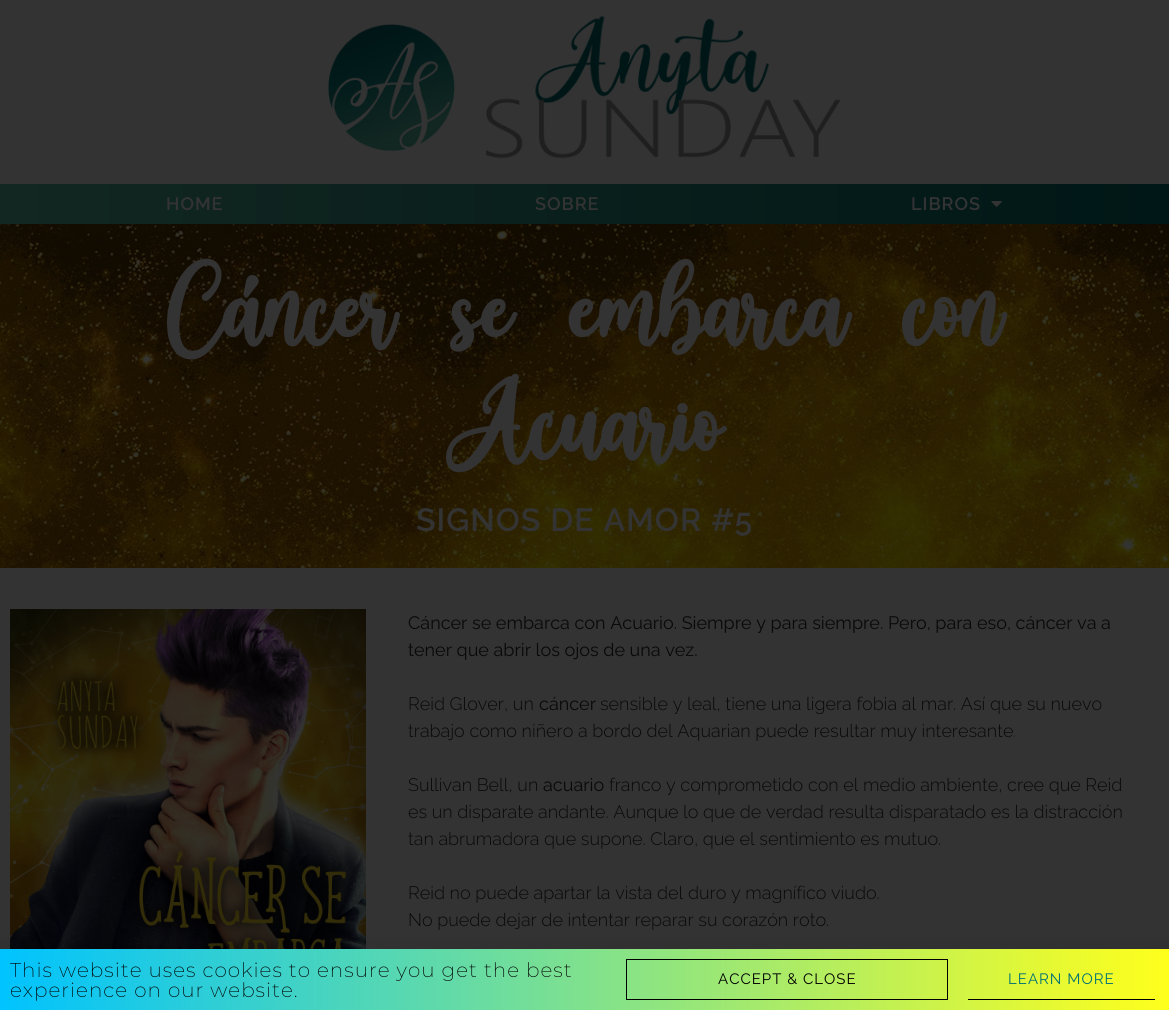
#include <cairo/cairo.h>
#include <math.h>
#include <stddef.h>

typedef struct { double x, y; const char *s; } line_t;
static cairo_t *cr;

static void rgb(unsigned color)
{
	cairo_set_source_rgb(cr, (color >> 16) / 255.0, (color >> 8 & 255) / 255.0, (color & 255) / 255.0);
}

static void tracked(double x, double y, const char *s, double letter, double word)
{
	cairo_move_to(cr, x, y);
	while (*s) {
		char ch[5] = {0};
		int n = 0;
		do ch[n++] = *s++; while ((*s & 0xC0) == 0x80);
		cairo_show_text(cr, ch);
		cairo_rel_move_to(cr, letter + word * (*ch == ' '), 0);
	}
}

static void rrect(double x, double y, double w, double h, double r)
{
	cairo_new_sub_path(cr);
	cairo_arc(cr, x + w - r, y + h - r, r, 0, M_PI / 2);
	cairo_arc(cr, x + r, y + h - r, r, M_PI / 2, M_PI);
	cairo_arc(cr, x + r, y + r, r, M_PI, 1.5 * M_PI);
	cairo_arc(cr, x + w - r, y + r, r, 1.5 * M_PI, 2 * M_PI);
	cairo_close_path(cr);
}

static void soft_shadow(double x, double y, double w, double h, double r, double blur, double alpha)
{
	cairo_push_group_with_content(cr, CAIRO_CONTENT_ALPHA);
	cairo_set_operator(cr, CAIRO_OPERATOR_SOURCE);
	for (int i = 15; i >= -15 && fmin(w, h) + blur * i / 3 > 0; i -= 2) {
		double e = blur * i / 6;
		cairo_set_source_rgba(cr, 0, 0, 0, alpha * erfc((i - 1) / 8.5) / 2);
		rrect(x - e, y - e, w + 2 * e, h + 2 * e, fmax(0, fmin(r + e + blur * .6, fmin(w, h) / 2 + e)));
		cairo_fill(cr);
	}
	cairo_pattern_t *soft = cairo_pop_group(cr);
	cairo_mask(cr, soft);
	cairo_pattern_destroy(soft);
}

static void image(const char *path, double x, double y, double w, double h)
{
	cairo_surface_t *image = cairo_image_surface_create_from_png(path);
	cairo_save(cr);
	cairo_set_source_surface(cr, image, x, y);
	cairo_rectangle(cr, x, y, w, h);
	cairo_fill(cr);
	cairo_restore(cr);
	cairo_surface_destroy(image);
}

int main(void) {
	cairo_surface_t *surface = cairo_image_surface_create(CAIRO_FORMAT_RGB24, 1169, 1010);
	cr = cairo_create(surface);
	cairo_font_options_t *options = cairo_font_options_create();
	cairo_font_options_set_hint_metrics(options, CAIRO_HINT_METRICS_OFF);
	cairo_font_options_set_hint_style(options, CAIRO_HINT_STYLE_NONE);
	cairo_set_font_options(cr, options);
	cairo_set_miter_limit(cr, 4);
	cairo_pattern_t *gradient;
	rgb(0x333333);
	cairo_paint(cr);
	image("img/1.png", 328, 15, 513, 144);
	gradient = cairo_pattern_create_linear(0, 204, 1169, 204);
	cairo_pattern_add_color_stop_rgba(gradient, 0, 0.071, 0.153, 0.129, 1);
	cairo_pattern_add_color_stop_rgba(gradient, 1, 0, 0.09, 0.09, 1);
	cairo_set_source(cr, gradient);
	cairo_pattern_destroy(gradient);
	cairo_rectangle(cr, 0, 184, 1169, 40);
	cairo_fill(cr);
	image("img/2.png", 991, 201, 11, 6);
	image("img/3.png", 0, 224, 1169, 344);
	image("img/4.png", 10, 609, 356, 340);
	rgb(0x000000);
	soft_shadow(-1, 954, 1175, 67, 0, 11.5, 0.2);
	gradient = cairo_pattern_create_linear(0, 980, 1169, 980);
	cairo_pattern_add_color_stop_rgba(gradient, 0, 0, 0.765, 1, 1);
	cairo_pattern_add_color_stop_rgba(gradient, 1, 1, 1, 0.11, 1);
	cairo_set_source(cr, gradient);
	cairo_pattern_destroy(gradient);
	cairo_rectangle(cr, 0, 949, 1169, 61);
	cairo_fill(cr);
	cairo_rectangle(cr, 626.5, 959.5, 321, 40);
	rgb(0x000000);
	cairo_set_line_width(cr, 1);
	cairo_stroke(cr);
	cairo_rectangle(cr, 968, 999, 187, 1);
	cairo_fill(cr);
	cairo_select_font_face(cr, "Raleway SemiBold", CAIRO_FONT_SLANT_NORMAL, CAIRO_FONT_WEIGHT_NORMAL);
	cairo_set_font_size(cr, 18);
	rgb(0x333333);
	{
		static const line_t items[] = {
			{166, 210, "HOME"},
			{535, 210, "SOBRE"},
			{911, 210, "LIBROS"},
		};
		for (size_t i = 0; i < sizeof items / sizeof *items; i++) {
			tracked(items[i].x, items[i].y, items[i].s, 1, 0);
		}
	}
	cairo_select_font_face(cr, "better", CAIRO_FONT_SLANT_NORMAL, CAIRO_FONT_WEIGHT_BOLD);
	cairo_set_font_size(cr, 114);
	cairo_move_to(cr, 167, 346);
	cairo_show_text(cr, "Cáncer se embarca con");
	cairo_move_to(cr, 446, 460);
	cairo_show_text(cr, "Acuario");
	cairo_select_font_face(cr, "Raleway SemiBold", CAIRO_FONT_SLANT_NORMAL, CAIRO_FONT_WEIGHT_NORMAL);
	cairo_set_font_size(cr, 32);
	tracked(416, 531, "SIGNOS DE AMOR #5", 1, 0);
	cairo_select_font_face(cr, "Raleway", CAIRO_FONT_SLANT_NORMAL, CAIRO_FONT_WEIGHT_NORMAL);
	cairo_set_font_size(cr, 18);
	rgb(0x090909);
	cairo_move_to(cr, 408, 629);
	cairo_show_text(cr, "Cáncer se embarca con Acuario. Siempre y para siempre. Pero, para eso, cáncer va a");
	cairo_move_to(cr, 408, 656);
	cairo_show_text(cr, "tener que abrir los ojos de una vez.");
	cairo_select_font_face(cr, "Raleway Light", CAIRO_FONT_SLANT_NORMAL, CAIRO_FONT_WEIGHT_NORMAL);
	cairo_move_to(cr, 408, 710);
	cairo_show_text(cr, "Reid Glover, un");
	cairo_select_font_face(cr, "Raleway", CAIRO_FONT_SLANT_NORMAL, CAIRO_FONT_WEIGHT_NORMAL);
	cairo_move_to(cr, 539, 710);
	cairo_show_text(cr, "cáncer");
	cairo_select_font_face(cr, "Raleway Light", CAIRO_FONT_SLANT_NORMAL, CAIRO_FONT_WEIGHT_NORMAL);
	{
		static const line_t items[] = {
			{600, 710, "sensible y leal, tiene una ligera fobia al mar. Así que su nuevo"},
			{408, 737, "trabajo como niñero a bordo del Aquarian puede resultar muy interesante."},
			{408, 791, "Sullivan Bell, un"},
		};
		for (size_t i = 0; i < sizeof items / sizeof *items; i++) {
			cairo_move_to(cr, items[i].x, items[i].y);
			cairo_show_text(cr, items[i].s);
		}
	}
	cairo_select_font_face(cr, "Raleway", CAIRO_FONT_SLANT_NORMAL, CAIRO_FONT_WEIGHT_NORMAL);
	cairo_move_to(cr, 543, 791);
	cairo_show_text(cr, "acuario");
	cairo_select_font_face(cr, "Raleway Light", CAIRO_FONT_SLANT_NORMAL, CAIRO_FONT_WEIGHT_NORMAL);
	{
		static const line_t items[] = {
			{609, 791, "franco y comprometido con el medio ambiente, cree que Reid"},
			{408, 818, "es un disparate andante. Aunque lo que de verdad resulta disparatado es la distracción"},
			{408, 845, "tan abrumadora que supone. Claro, que el sentimiento es mutuo."},
			{408, 899, "Reid no puede apartar la vista del duro y magnífico viudo."},
			{408, 926, "No puede dejar de intentar reparar su corazón roto."},
		};
		for (size_t i = 0; i < sizeof items / sizeof *items; i++) {
			cairo_move_to(cr, items[i].x, items[i].y);
			cairo_show_text(cr, items[i].s);
		}
	}
	cairo_select_font_face(cr, "Montserrat ExtraLight", CAIRO_FONT_SLANT_NORMAL, CAIRO_FONT_WEIGHT_NORMAL);
	cairo_set_font_size(cr, 20);
	rgb(0x000000);
	tracked(10, 977, "This website uses cookies to ensure you get the best", 1, 0);
	tracked(10, 997, "experience on our website.", 1, 0);
	cairo_select_font_face(cr, "Raleway", CAIRO_FONT_SLANT_NORMAL, CAIRO_FONT_WEIGHT_NORMAL);
	cairo_set_font_size(cr, 15);
	tracked(718, 984, "ACCEPT & CLOSE", 1, 0);
	rgb(0x007274);
	tracked(1008, 984, "LEARN MORE", 1, 0);
	cairo_surface_write_to_png(surface, "page.png");
	cairo_font_options_destroy(options);
	cairo_destroy(cr);
	cairo_surface_destroy(surface);
	return 0;
}
